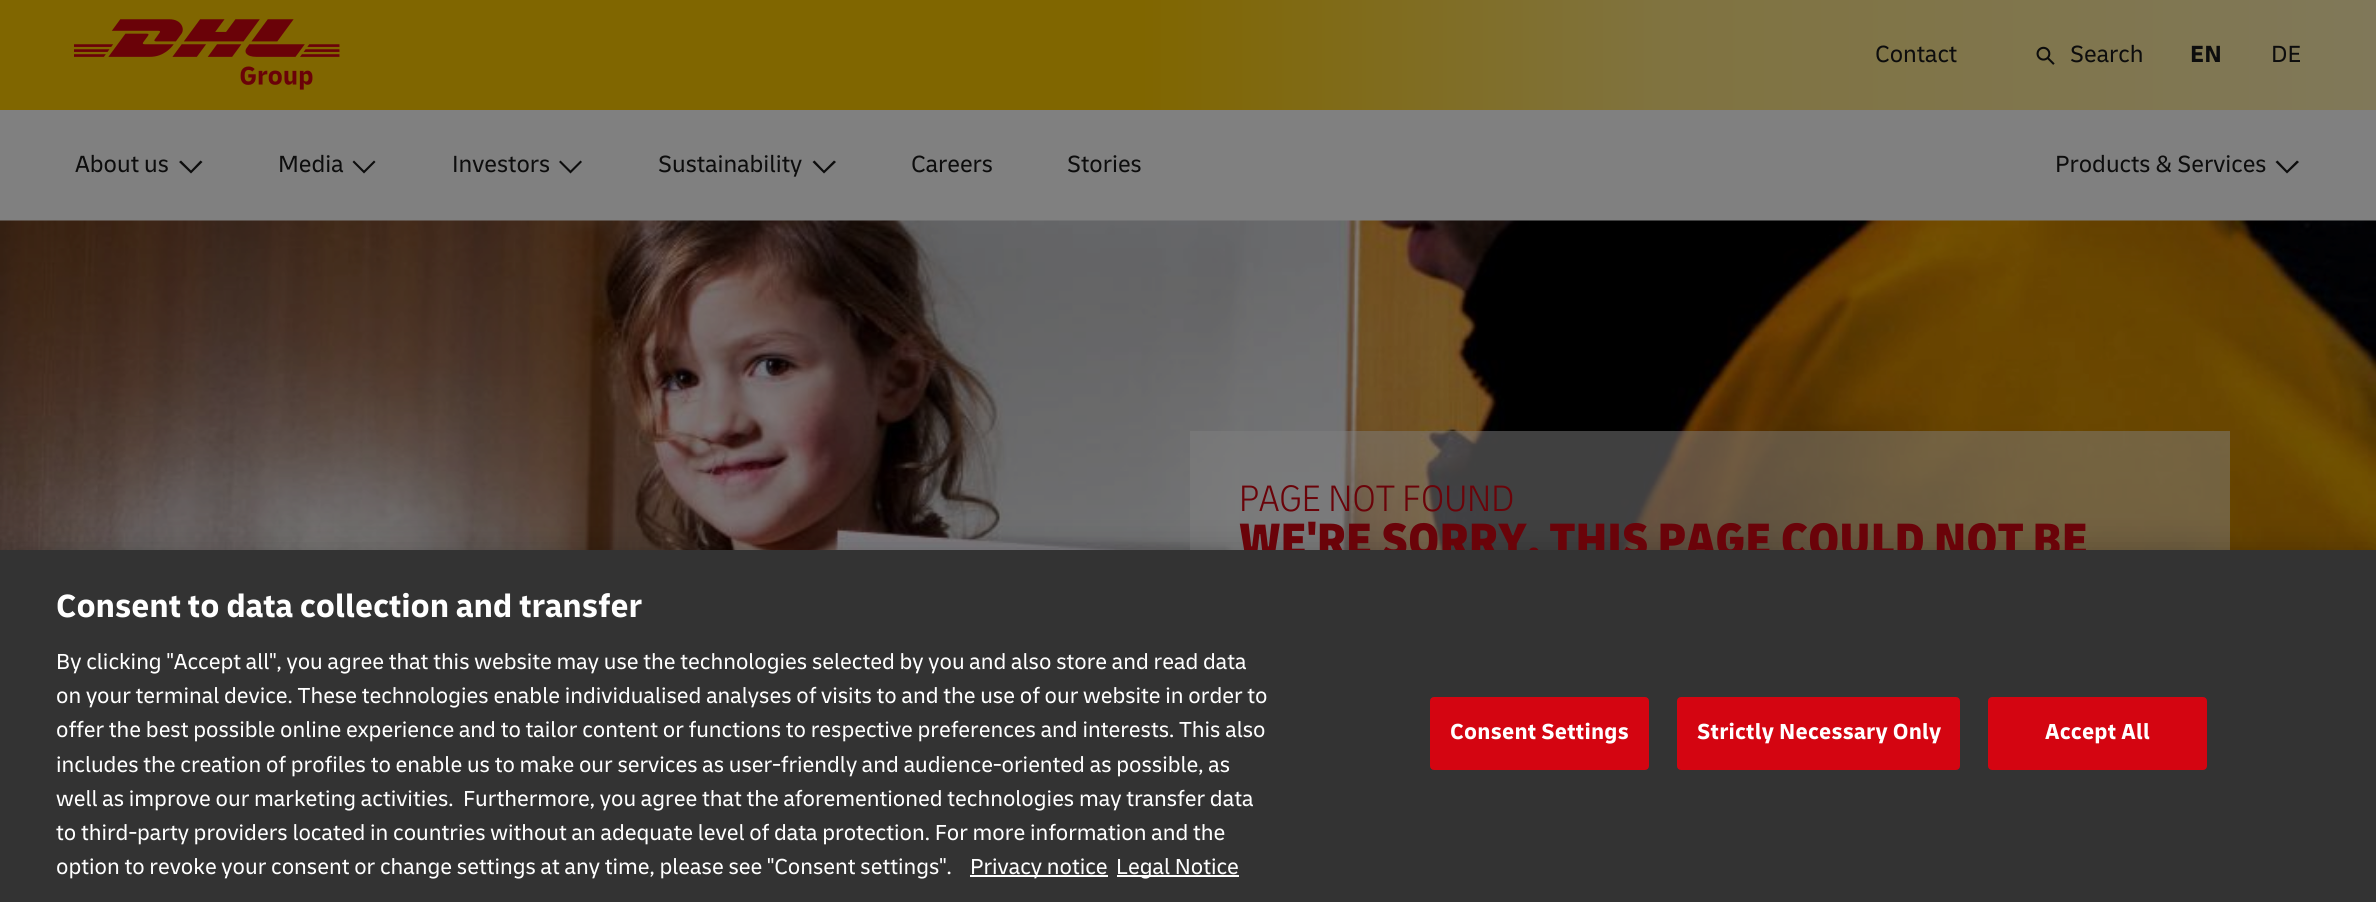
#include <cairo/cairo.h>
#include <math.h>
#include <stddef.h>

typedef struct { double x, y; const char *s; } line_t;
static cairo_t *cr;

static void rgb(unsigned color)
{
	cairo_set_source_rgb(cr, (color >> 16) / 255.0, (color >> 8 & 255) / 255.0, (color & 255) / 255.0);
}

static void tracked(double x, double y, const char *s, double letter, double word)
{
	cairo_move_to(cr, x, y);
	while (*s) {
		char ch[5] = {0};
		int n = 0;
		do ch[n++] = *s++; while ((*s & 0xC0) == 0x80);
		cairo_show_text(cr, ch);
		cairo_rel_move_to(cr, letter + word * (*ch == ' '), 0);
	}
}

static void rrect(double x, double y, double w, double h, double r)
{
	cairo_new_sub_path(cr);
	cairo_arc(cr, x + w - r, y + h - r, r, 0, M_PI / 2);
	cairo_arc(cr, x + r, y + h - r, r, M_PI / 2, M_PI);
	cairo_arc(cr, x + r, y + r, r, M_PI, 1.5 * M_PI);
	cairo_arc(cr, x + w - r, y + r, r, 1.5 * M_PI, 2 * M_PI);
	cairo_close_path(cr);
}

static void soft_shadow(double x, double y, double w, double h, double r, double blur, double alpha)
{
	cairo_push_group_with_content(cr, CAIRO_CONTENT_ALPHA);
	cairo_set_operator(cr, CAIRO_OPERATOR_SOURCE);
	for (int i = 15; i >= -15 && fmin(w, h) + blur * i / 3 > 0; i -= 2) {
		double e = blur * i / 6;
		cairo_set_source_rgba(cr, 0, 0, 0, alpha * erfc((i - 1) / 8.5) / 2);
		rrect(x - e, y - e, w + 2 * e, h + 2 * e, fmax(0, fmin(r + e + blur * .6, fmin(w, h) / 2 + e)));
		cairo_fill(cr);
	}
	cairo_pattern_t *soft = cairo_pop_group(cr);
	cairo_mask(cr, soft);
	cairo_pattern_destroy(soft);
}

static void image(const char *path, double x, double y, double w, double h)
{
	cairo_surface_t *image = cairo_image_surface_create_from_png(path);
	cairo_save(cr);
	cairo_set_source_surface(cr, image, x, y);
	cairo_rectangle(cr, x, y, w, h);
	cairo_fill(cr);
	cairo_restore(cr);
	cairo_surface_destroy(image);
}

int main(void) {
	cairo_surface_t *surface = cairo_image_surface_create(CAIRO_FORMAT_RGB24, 2376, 902);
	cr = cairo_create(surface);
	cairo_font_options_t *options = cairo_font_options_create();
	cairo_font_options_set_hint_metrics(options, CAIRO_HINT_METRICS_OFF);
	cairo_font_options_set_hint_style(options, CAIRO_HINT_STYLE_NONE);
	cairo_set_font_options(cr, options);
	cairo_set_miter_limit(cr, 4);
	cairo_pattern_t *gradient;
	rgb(0x808080);
	cairo_paint(cr);
	gradient = cairo_pattern_create_linear(0, 55, 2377, 55);
	cairo_pattern_add_color_stop_rgba(gradient, 0, 0.502, 0.4, 0, 1);
	cairo_pattern_add_color_stop_rgba(gradient, 0.48, 0.502, 0.4, 0, 1);
	cairo_pattern_add_color_stop_rgba(gradient, 0.7, 0.502, 0.451, 0.251, 1);
	cairo_pattern_add_color_stop_rgba(gradient, 1, 0.502, 0.471, 0.349, 1);
	cairo_set_source(cr, gradient);
	cairo_pattern_destroy(gradient);
	cairo_rectangle(cr, 0, 0, 2376, 110);
	cairo_fill(cr);
	image("img/1.png", 74, 19, 266, 71);
	image("img/2.png", 2036, 46, 19, 19);
	rgb(0x0d0d0d);
	cairo_new_path(cr);
	cairo_move_to(cr, 191, 173.5);
	cairo_line_to(cr, 179, 162);
	cairo_line_to(cr, 181, 160.5);
	cairo_line_to(cr, 191, 170.5);
	cairo_line_to(cr, 200.5, 160.5);
	cairo_line_to(cr, 202.5, 162);
	cairo_close_path(cr);
	cairo_fill(cr);
	cairo_new_path(cr);
	cairo_move_to(cr, 364, 173.5);
	cairo_line_to(cr, 352.5, 162);
	cairo_line_to(cr, 354, 160.5);
	cairo_line_to(cr, 364, 170.5);
	cairo_line_to(cr, 374, 160.5);
	cairo_line_to(cr, 375.5, 162);
	cairo_close_path(cr);
	cairo_fill(cr);
	cairo_new_path(cr);
	cairo_move_to(cr, 570.5, 173.5);
	cairo_line_to(cr, 559, 162);
	cairo_line_to(cr, 560.5, 160.5);
	cairo_line_to(cr, 570.5, 170.5);
	cairo_line_to(cr, 580.5, 160.5);
	cairo_line_to(cr, 582, 162);
	cairo_close_path(cr);
	cairo_fill(cr);
	cairo_new_path(cr);
	cairo_move_to(cr, 824, 173.5);
	cairo_line_to(cr, 812.5, 162);
	cairo_line_to(cr, 814.5, 160.5);
	cairo_line_to(cr, 824, 170.5);
	cairo_line_to(cr, 834, 160.5);
	cairo_line_to(cr, 836, 162);
	cairo_close_path(cr);
	cairo_fill(cr);
	cairo_new_path(cr);
	cairo_move_to(cr, 2287, 173.5);
	cairo_line_to(cr, 2275.5, 162);
	cairo_line_to(cr, 2277.5, 160.5);
	cairo_line_to(cr, 2287, 170.5);
	cairo_line_to(cr, 2297, 160.5);
	cairo_line_to(cr, 2299, 162);
	cairo_close_path(cr);
	cairo_fill(cr);
	image("img/3.png", 0, 220, 2376, 330);
	cairo_set_source_rgba(cr, 0.502, 0.502, 0.502, 0.5);
	cairo_rectangle(cr, 1190, 431, 1040, 119);
	cairo_fill(cr);
	rgb(0x000000);
	soft_shadow(0, 550, 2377, 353, 0, 16, 0.2);
	cairo_select_font_face(cr, "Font", CAIRO_FONT_SLANT_NORMAL, CAIRO_FONT_WEIGHT_NORMAL);
	cairo_set_font_size(cr, 24.5);
	rgb(0x0d0d0d);
	cairo_move_to(cr, 1875, 62);
	cairo_show_text(cr, "Contact");
	cairo_move_to(cr, 2070, 62);
	cairo_show_text(cr, "Search");
	cairo_select_font_face(cr, "Font", CAIRO_FONT_SLANT_NORMAL, CAIRO_FONT_WEIGHT_BOLD);
	cairo_move_to(cr, 2190, 62);
	cairo_show_text(cr, "EN");
	cairo_select_font_face(cr, "Font", CAIRO_FONT_SLANT_NORMAL, CAIRO_FONT_WEIGHT_NORMAL);
	{
		static const line_t items[] = {
			{2271, 62, "DE"},
			{75, 172, "About us"},
			{278, 172, "Media"},
			{452, 172, "Investors"},
			{658, 172, "Sustainability"},
			{911, 172, "Careers"},
			{1067, 172, "Stories"},
			{2055, 172, "Products & Services"},
		};
		for (size_t i = 0; i < sizeof items / sizeof *items; i++) {
			cairo_move_to(cr, items[i].x, items[i].y);
			cairo_show_text(cr, items[i].s);
		}
	}
	cairo_select_font_face(cr, "Font Light", CAIRO_FONT_SLANT_NORMAL, CAIRO_FONT_WEIGHT_NORMAL);
	cairo_set_font_size(cr, 38.5);
	rgb(0x6a0309);
	cairo_move_to(cr, 1239, 511);
	cairo_show_text(cr, "PAGE NOT FOUND");
	cairo_select_font_face(cr, "Font ExtraBold", CAIRO_FONT_SLANT_NORMAL, CAIRO_FONT_WEIGHT_NORMAL);
	cairo_set_font_size(cr, 49);
	cairo_move_to(cr, 1239, 556);
	cairo_show_text(cr, "WE'RE SORRY, THIS PAGE COULD NOT BE");
	rgb(0x333333);
	cairo_rectangle(cr, 0, 550, 2376, 352);
	cairo_fill(cr);
	cairo_select_font_face(cr, "Font", CAIRO_FONT_SLANT_NORMAL, CAIRO_FONT_WEIGHT_BOLD);
	cairo_set_font_size(cr, 33.6);
	rgb(0xffffff);
	cairo_move_to(cr, 56, 617);
	cairo_show_text(cr, "Consent to data collection and transfer");
	cairo_select_font_face(cr, "Font", CAIRO_FONT_SLANT_NORMAL, CAIRO_FONT_WEIGHT_NORMAL);
	cairo_set_font_size(cr, 22.75);
	{
		static const line_t items[] = {
			{56, 669, "By clicking \"Accept all\", you agree that this website may use the technologies selected by you and also store and read data"},
			{56, 703, "on your terminal device. These technologies enable individualised analyses of visits to and the use of our website in order to"},
			{56, 737, "offer the best possible online experience and to tailor content or functions to respective preferences and interests. This also"},
			{56, 772, "includes the creation of profiles to enable us to make our services as user-friendly and audience-oriented as possible, as"},
			{56, 806, "well as improve our marketing activities.  Furthermore, you agree that the aforementioned technologies may transfer data"},
			{56, 840, "to third-party providers located in countries without an adequate level of data protection. For more information and the"},
			{56, 874, "option to revoke your consent or change settings at any time, please see \"Consent settings\"."},
		};
		for (size_t i = 0; i < sizeof items / sizeof *items; i++) {
			cairo_move_to(cr, items[i].x, items[i].y);
			cairo_show_text(cr, items[i].s);
		}
	}
	cairo_rectangle(cr, 970, 875, 138, 2);
	cairo_fill(cr);
	cairo_move_to(cr, 970, 874);
	cairo_show_text(cr, "Privacy notice");
	cairo_rectangle(cr, 1117, 875, 122, 2);
	cairo_fill(cr);
	cairo_move_to(cr, 1116, 874);
	cairo_show_text(cr, "Legal Notice");
	rgb(0xd40511);
	rrect(1431, 698, 217, 71, 3);
	cairo_fill_preserve(cr);
	cairo_stroke(cr);
	cairo_select_font_face(cr, "Font", CAIRO_FONT_SLANT_NORMAL, CAIRO_FONT_WEIGHT_BOLD);
	rgb(0xffffff);
	tracked(1450, 739, "Consent Settings", 0.25, 0);
	rgb(0xd40511);
	rrect(1678, 698, 281, 71, 3);
	cairo_fill_preserve(cr);
	cairo_stroke(cr);
	rgb(0xffffff);
	tracked(1697, 739, "Strictly Necessary Only", 0.25, 0);
	rgb(0xd40511);
	rrect(1989, 698, 217, 71, 3);
	cairo_fill_preserve(cr);
	cairo_stroke(cr);
	rgb(0xffffff);
	tracked(2045, 739, "Accept All", 0.25, 0);
	cairo_surface_write_to_png(surface, "page.png");
	cairo_font_options_destroy(options);
	cairo_destroy(cr);
	cairo_surface_destroy(surface);
	return 0;
}
